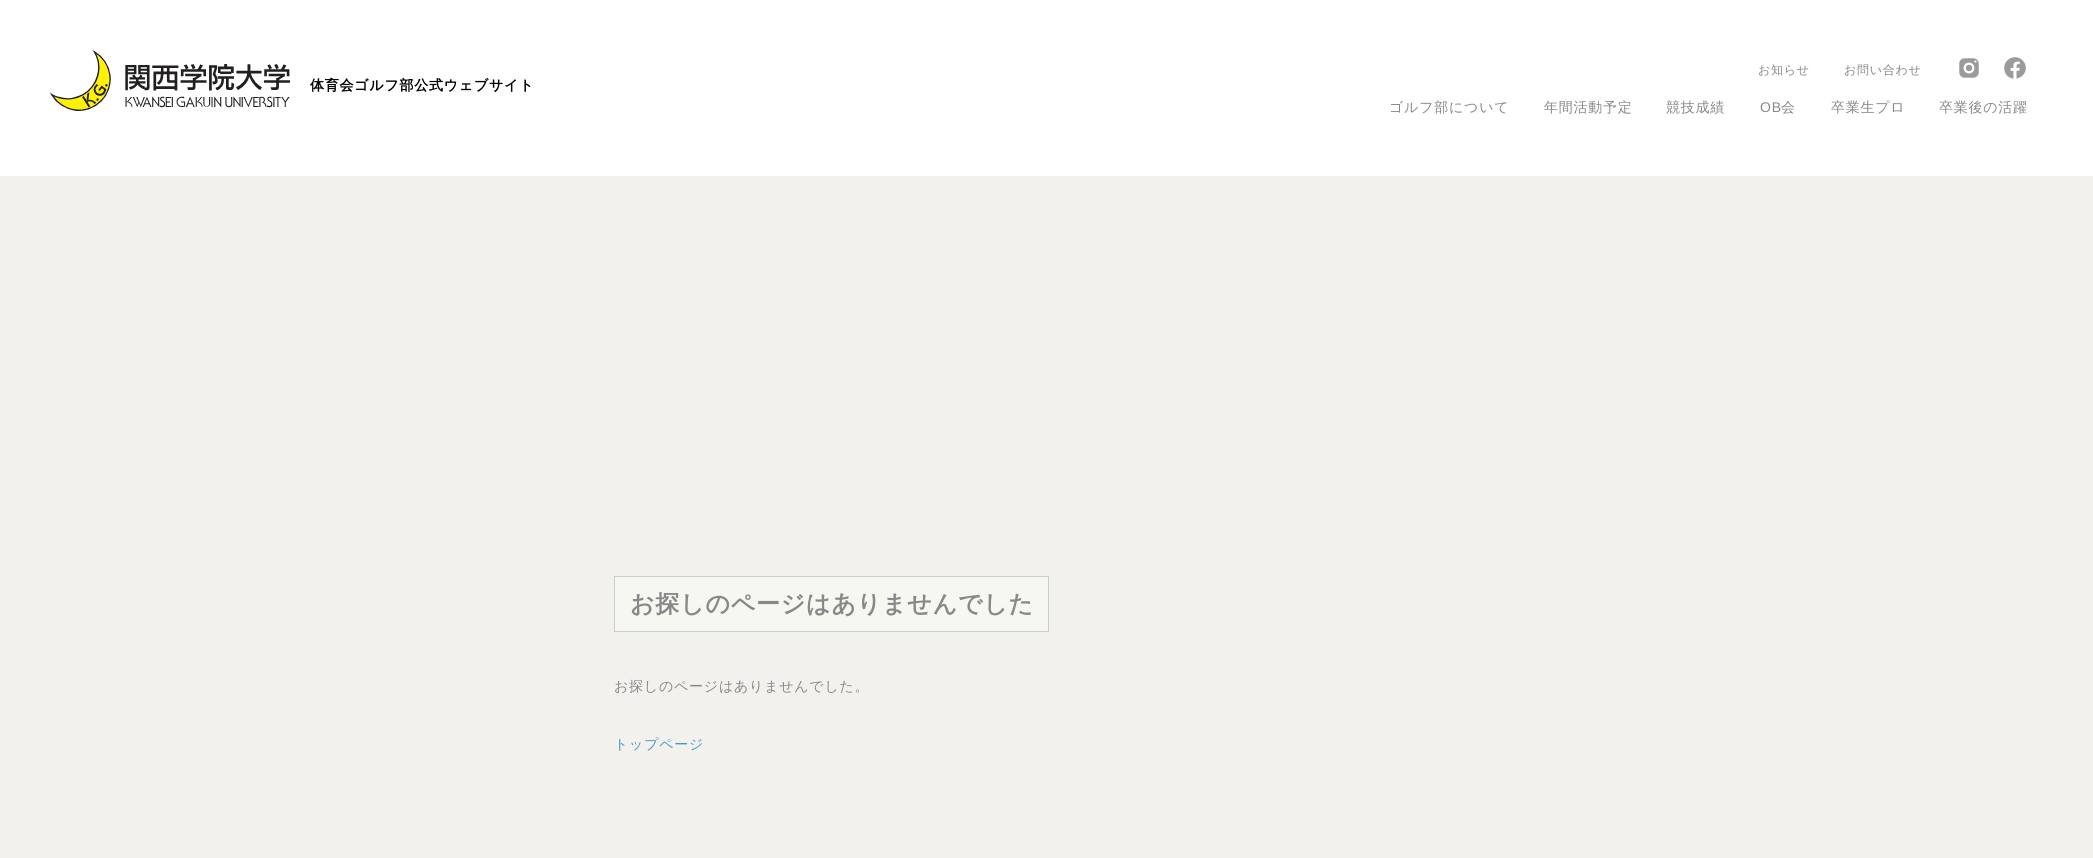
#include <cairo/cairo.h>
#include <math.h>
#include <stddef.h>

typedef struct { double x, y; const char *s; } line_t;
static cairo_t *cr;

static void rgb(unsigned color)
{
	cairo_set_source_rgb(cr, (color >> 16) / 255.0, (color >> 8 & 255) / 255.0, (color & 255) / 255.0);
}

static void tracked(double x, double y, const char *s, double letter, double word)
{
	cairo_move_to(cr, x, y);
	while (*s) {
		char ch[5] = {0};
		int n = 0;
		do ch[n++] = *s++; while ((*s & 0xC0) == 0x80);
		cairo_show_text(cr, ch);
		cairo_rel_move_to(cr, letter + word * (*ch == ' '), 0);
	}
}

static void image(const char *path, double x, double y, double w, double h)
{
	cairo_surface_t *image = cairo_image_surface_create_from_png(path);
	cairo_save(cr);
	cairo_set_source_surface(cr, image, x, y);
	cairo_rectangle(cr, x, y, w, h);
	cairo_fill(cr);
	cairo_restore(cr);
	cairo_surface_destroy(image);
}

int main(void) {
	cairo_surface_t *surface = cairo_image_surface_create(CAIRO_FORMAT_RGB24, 2093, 858);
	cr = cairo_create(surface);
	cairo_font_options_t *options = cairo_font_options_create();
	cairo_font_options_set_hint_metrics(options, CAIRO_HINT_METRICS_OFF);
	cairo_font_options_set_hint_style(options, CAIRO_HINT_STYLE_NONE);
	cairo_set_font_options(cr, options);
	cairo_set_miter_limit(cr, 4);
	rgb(0xf2f1ed);
	cairo_paint(cr);
	rgb(0xffffff);
	cairo_rectangle(cr, 0, 0, 2093, 176);
	cairo_fill(cr);
	image("img/1.png", 50, 50, 240, 61);
	image("img/2.png", 1959, 58, 20, 20);
	image("img/3.png", 2004, 57, 22, 22);
	rgb(0xf7f7f2);
	cairo_rectangle(cr, 614.5, 576.5, 434, 55);
	cairo_fill_preserve(cr);
	rgb(0xcccccc);
	cairo_set_line_width(cr, 1);
	cairo_stroke(cr);
	cairo_select_font_face(cr, "WenQuanYi Zen Hei", CAIRO_FONT_SLANT_NORMAL, CAIRO_FONT_WEIGHT_BOLD);
	cairo_set_font_size(cr, 14);
	rgb(0x000000);
	tracked(310, 90, "体育会ゴルフ部公式ウェブサイト", 0.75, 0);
	cairo_select_font_face(cr, "WenQuanYi Zen Hei Medium", CAIRO_FONT_SLANT_NORMAL, CAIRO_FONT_WEIGHT_NORMAL);
	cairo_set_font_size(cr, 12);
	rgb(0x888888);
	tracked(1758, 74, "お知らせ", 0.75, 0);
	tracked(1844, 74, "お問い合わせ", 0.75, 0);
	cairo_set_font_size(cr, 14);
	{
		static const line_t items[] = {
			{1389, 112, "ゴルフ部について"},
			{1544, 112, "年間活動予定"},
			{1666, 112, "競技成績"},
		};
		for (size_t i = 0; i < sizeof items / sizeof *items; i++) {
			tracked(items[i].x, items[i].y, items[i].s, 0.75, 0);
		}
	}
	cairo_select_font_face(cr, "Liberation Sans", CAIRO_FONT_SLANT_NORMAL, CAIRO_FONT_WEIGHT_NORMAL);
	tracked(1760, 112, "OB", 0.75, 0);
	cairo_select_font_face(cr, "WenQuanYi Zen Hei Medium", CAIRO_FONT_SLANT_NORMAL, CAIRO_FONT_WEIGHT_NORMAL);
	{
		static const line_t items[] = {
			{1781, 112, "会"},
			{1831, 112, "卒業生プロ"},
			{1939, 112, "卒業後の活躍"},
		};
		for (size_t i = 0; i < sizeof items / sizeof *items; i++) {
			tracked(items[i].x, items[i].y, items[i].s, 0.75, 0);
		}
	}
	cairo_select_font_face(cr, "WenQuanYi Zen Hei", CAIRO_FONT_SLANT_NORMAL, CAIRO_FONT_WEIGHT_BOLD);
	cairo_set_font_size(cr, 24);
	tracked(630, 612, "お探しのページはありませんでした", 0.75, 0);
	cairo_select_font_face(cr, "WenQuanYi Zen Hei Medium", CAIRO_FONT_SLANT_NORMAL, CAIRO_FONT_WEIGHT_NORMAL);
	cairo_set_font_size(cr, 14);
	tracked(614, 691, "お探しのページはありませんでした。", 0.75, 0);
	rgb(0x4b9bc1);
	tracked(614, 749, "トップページ", 0.75, 0);
	cairo_surface_write_to_png(surface, "page.png");
	cairo_font_options_destroy(options);
	cairo_destroy(cr);
	cairo_surface_destroy(surface);
	return 0;
}
